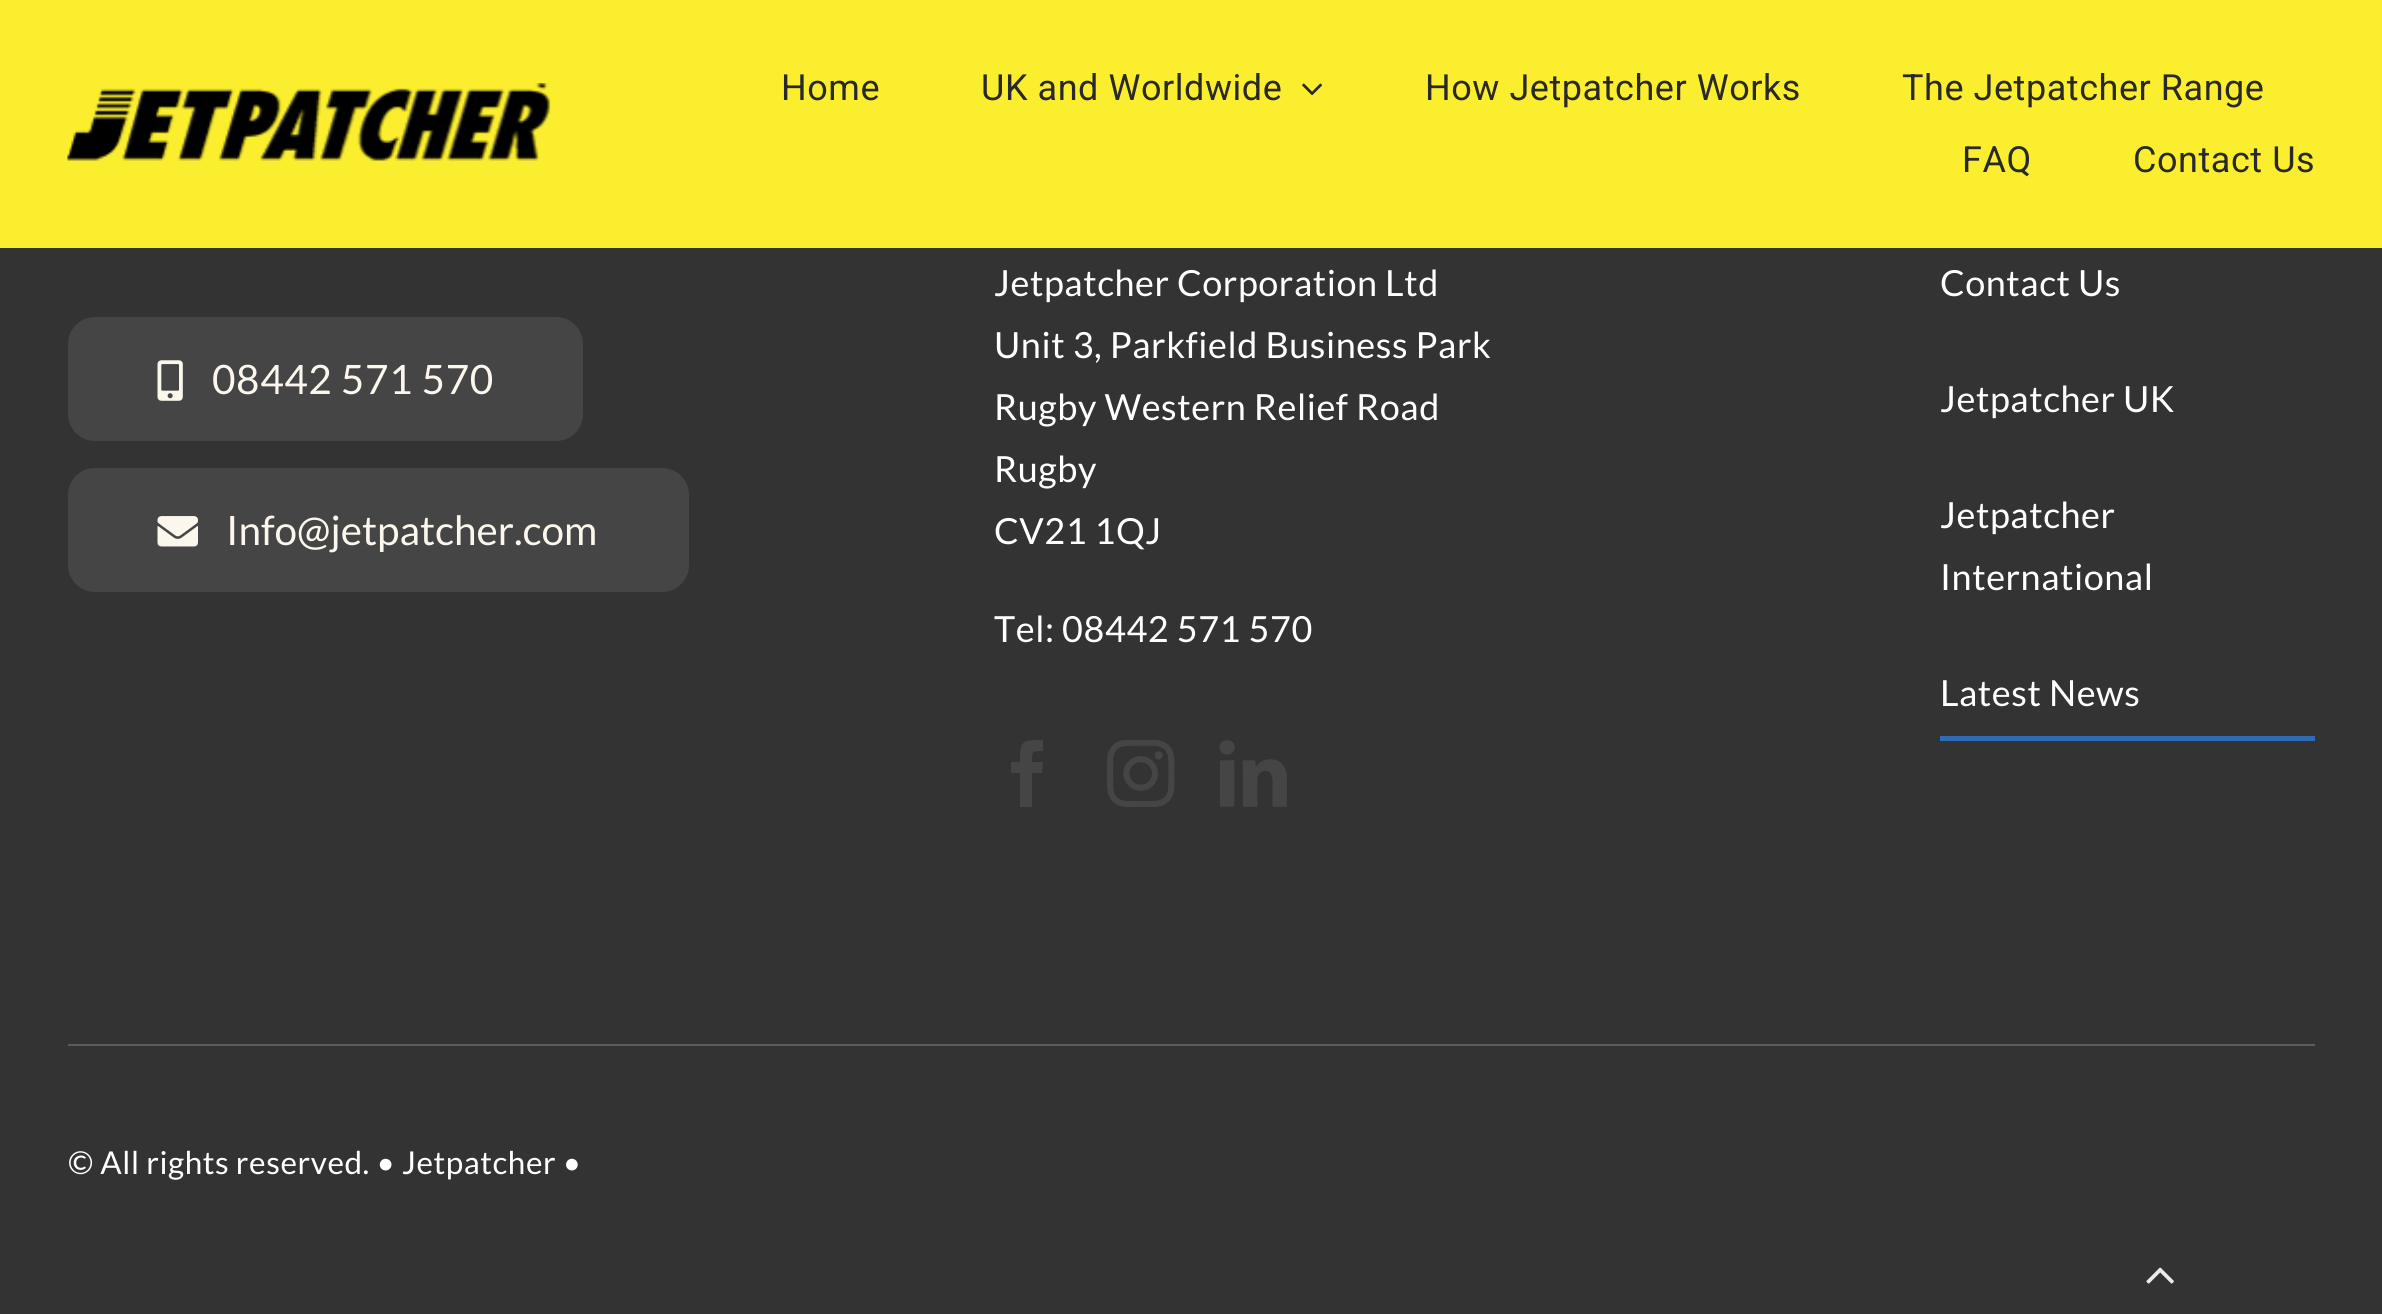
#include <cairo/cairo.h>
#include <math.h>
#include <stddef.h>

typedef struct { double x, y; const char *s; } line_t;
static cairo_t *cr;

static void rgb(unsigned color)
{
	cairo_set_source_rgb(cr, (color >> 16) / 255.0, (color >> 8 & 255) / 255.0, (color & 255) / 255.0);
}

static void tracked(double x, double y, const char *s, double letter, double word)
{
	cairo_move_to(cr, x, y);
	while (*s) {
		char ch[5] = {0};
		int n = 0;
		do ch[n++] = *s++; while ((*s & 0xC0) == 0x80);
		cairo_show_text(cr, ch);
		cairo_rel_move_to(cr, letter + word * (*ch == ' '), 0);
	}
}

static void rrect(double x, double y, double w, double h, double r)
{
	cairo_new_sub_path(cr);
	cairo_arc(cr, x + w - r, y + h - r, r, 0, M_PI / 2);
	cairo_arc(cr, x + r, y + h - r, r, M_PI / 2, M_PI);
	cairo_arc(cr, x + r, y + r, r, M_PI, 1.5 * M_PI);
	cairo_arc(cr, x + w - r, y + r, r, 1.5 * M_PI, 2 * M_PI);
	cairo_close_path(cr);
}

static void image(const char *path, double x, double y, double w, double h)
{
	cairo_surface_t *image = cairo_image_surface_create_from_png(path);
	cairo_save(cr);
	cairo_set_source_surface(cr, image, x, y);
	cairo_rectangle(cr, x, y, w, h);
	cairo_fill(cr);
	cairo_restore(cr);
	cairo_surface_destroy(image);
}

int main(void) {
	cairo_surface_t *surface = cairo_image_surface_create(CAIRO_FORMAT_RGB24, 2382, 1314);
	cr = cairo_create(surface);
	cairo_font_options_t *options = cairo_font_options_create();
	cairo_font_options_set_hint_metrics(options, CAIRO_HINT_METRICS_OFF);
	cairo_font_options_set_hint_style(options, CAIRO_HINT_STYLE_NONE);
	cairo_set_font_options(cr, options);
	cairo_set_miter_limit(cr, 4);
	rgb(0x333333);
	cairo_paint(cr);
	rgb(0xfbee2e);
	cairo_rectangle(cr, 0, 0, 2382, 248);
	cairo_fill(cr);
	image("img/1.png", 67, 83, 484, 78);
	image("img/2.png", 1302, 83, 20, 13);
	rgb(0x454545);
	rrect(68, 317, 515, 124, 27);
	cairo_fill(cr);
	image("img/3.png", 157, 360, 26, 41);
	rrect(68, 468, 621, 124, 27);
	cairo_fill(cr);
	image("img/4.png", 157, 516, 41, 31);
	cairo_new_path(cr);
	cairo_move_to(cr, 1032, 807);
	cairo_line_to(cr, 1020, 807);
	cairo_line_to(cr, 1020, 773);
	cairo_line_to(cr, 1011, 773);
	cairo_line_to(cr, 1011, 762);
	cairo_line_to(cr, 1020, 762);
	cairo_curve_to(cr, 1020, 740, 1022, 740, 1043, 740);
	cairo_line_to(cr, 1043, 751);
	cairo_curve_to(cr, 1032, 751, 1032, 751, 1032, 762);
	cairo_line_to(cr, 1043, 762);
	cairo_line_to(cr, 1042, 773);
	cairo_line_to(cr, 1032, 773);
	cairo_close_path(cr);
	cairo_fill(cr);
	image("img/5.png", 1107, 740, 68, 67);
	image("img/6.png", 1219, 740, 68, 67);
	rgb(0x316bb7);
	cairo_rectangle(cr, 1940, 736, 375, 5);
	cairo_fill(cr);
	rgb(0x5c5c5c);
	cairo_rectangle(cr, 68, 1044, 2247, 2);
	cairo_fill(cr);
	image("img/7.png", 2146, 1267, 28, 17);
	cairo_select_font_face(cr, "Roboto", CAIRO_FONT_SLANT_NORMAL, CAIRO_FONT_WEIGHT_NORMAL);
	cairo_set_font_size(cr, 36);
	rgb(0x292929);
	{
		static const line_t items[] = {
			{781, 100, "Home"},
			{981, 100, "UK and Worldwide"},
			{1425, 100, "How Jetpatcher Works"},
			{1902, 100, "The Jetpatcher Range"},
			{1962, 172, "FAQ"},
			{2133, 172, "Contact Us"},
		};
		for (size_t i = 0; i < sizeof items / sizeof *items; i++) {
			tracked(items[i].x, items[i].y, items[i].s, 0.55, 0);
		}
	}
	cairo_select_font_face(cr, "Lato", CAIRO_FONT_SLANT_NORMAL, CAIRO_FONT_WEIGHT_NORMAL);
	cairo_set_font_size(cr, 40.5);
	rgb(0xfcf7ed);
	tracked(212, 394, "08442 571 570", 0.6, 0);
	cairo_move_to(cr, 226, 545);
	cairo_show_text(cr, "Info@jetpatcher.com");
	cairo_set_font_size(cr, 36);
	rgb(0xffffff);
	{
		static const line_t items[] = {
			{994, 296, "Jetpatcher Corporation Ltd"},
			{994, 358, "Unit 3, Parkfield Business Park"},
			{994, 420, "Rugby Western Relief Road"},
			{994, 482, "Rugby"},
			{994, 544, "CV21 1QJ"},
			{994, 642, "Tel: 08442 571 570"},
			{1940, 296, "Contact Us"},
			{1940, 412, "Jetpatcher UK"},
			{1940, 528, "Jetpatcher"},
			{1940, 590, "International"},
			{1940, 706, "Latest News"},
		};
		for (size_t i = 0; i < sizeof items / sizeof *items; i++) {
			tracked(items[i].x, items[i].y, items[i].s, 0.55, 0);
		}
	}
	cairo_set_font_size(cr, 31.5);
	tracked(68, 1174, "© All rights reserved. • Jetpatcher •", 0.55, 0);
	cairo_surface_write_to_png(surface, "page.png");
	cairo_font_options_destroy(options);
	cairo_destroy(cr);
	cairo_surface_destroy(surface);
	return 0;
}
